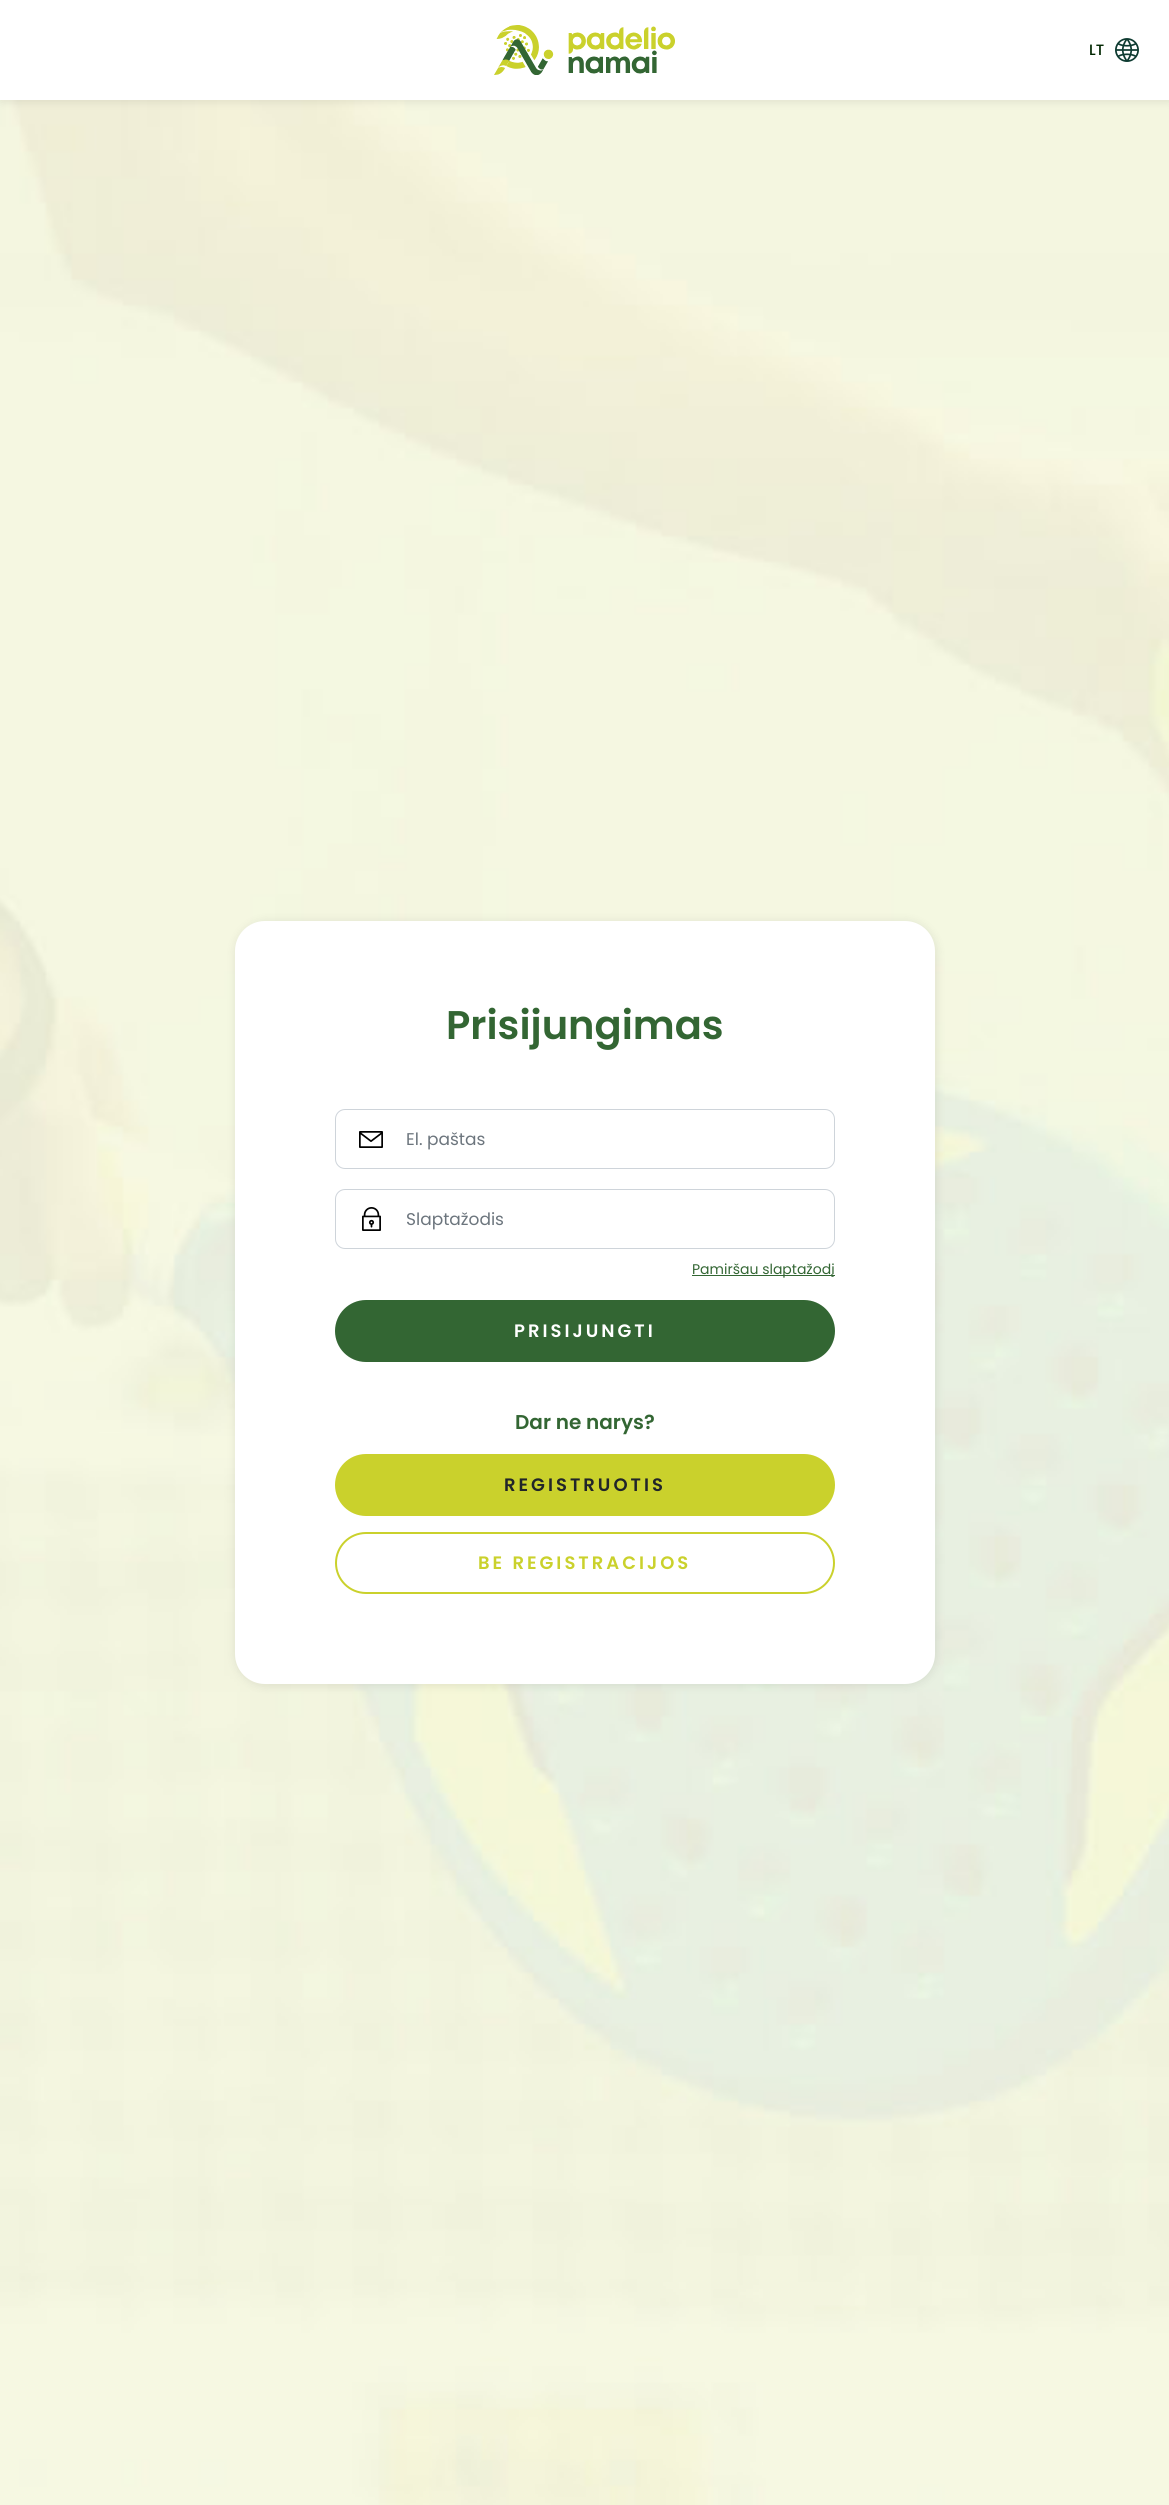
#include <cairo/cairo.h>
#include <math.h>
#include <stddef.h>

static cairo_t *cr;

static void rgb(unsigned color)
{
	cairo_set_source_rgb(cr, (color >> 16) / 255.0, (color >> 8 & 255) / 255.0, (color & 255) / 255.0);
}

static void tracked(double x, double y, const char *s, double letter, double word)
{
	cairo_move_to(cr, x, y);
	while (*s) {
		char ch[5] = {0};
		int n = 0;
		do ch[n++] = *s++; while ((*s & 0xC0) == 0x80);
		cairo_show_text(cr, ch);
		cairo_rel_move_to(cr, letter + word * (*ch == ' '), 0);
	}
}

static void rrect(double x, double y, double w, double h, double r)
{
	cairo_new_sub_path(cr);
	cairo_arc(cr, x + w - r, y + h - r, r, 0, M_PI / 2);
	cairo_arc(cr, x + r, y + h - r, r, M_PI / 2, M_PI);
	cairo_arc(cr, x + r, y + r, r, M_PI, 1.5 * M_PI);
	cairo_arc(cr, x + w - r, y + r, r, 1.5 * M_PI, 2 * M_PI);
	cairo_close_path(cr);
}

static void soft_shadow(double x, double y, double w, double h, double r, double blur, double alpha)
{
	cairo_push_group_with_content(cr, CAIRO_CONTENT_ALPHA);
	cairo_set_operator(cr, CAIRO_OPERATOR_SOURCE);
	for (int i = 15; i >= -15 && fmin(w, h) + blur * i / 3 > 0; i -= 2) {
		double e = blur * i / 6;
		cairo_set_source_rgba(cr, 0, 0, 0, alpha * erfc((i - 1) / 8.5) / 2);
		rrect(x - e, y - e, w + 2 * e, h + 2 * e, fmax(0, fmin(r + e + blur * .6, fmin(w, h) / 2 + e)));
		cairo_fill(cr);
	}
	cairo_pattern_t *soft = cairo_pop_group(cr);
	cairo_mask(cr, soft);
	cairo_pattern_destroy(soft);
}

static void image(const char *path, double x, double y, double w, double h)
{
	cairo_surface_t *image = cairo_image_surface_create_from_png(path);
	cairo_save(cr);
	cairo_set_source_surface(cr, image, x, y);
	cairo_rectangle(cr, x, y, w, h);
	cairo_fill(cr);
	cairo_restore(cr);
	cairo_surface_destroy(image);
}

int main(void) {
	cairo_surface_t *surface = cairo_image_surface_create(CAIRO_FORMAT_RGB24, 1169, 2505);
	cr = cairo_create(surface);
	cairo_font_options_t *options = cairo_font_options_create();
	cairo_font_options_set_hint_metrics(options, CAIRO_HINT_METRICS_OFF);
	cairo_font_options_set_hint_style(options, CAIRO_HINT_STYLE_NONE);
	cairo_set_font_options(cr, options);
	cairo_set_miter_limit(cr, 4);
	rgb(0xffffff);
	cairo_paint(cr);
	image("img/3.png", 0, 100, 1169, 2405);
	rgb(0x000000);
	soft_shadow(1, 1, 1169, 100, 0, 5, 0.1);
	rgb(0xffffff);
	cairo_rectangle(cr, 0, 0, 1169, 100);
	cairo_fill(cr);
	image("img/1.png", 494, 25, 181, 50);
	image("img/2.png", 1115, 38, 24, 24);
	rgb(0x000000);
	soft_shadow(236, 922, 700, 763, 30, 5, 0.1);
	rgb(0xffffff);
	rrect(235, 921, 700, 763, 30);
	cairo_fill(cr);
	rrect(335.5, 1109.5, 499, 59, 9.5);
	rgb(0xced4da);
	cairo_set_line_width(cr, 1);
	cairo_stroke(cr);
	image("img/4.png", 359, 1131, 24, 17);
	rrect(335.5, 1189.5, 499, 59, 9.5);
	cairo_stroke(cr);
	image("img/5.png", 362, 1207, 19, 24);
	rgb(0x336633);
	cairo_rectangle(cr, 692, 1275, 143, 1);
	cairo_fill(cr);
	rrect(336, 1301, 498, 60, 30);
	cairo_fill_preserve(cr);
	cairo_set_line_width(cr, 2);
	cairo_stroke(cr);
	rgb(0xcad12c);
	rrect(336, 1455, 498, 60, 30);
	cairo_fill_preserve(cr);
	cairo_stroke(cr);
	rrect(336, 1533, 498, 60, 30);
	cairo_stroke(cr);
	cairo_select_font_face(cr, "Poppins Medium", CAIRO_FONT_SLANT_NORMAL, CAIRO_FONT_WEIGHT_NORMAL);
	cairo_set_font_size(cr, 15);
	rgb(0x002600);
	cairo_move_to(cr, 1089, 55);
	cairo_show_text(cr, "LT");
	cairo_select_font_face(cr, "Poppins SemiBold", CAIRO_FONT_SLANT_NORMAL, CAIRO_FONT_WEIGHT_NORMAL);
	cairo_set_font_size(cr, 40);
	rgb(0x336633);
	cairo_move_to(cr, 446, 1039);
	cairo_show_text(cr, "Prisijungimas");
	cairo_select_font_face(cr, "Poppins", CAIRO_FONT_SLANT_NORMAL, CAIRO_FONT_WEIGHT_NORMAL);
	cairo_set_font_size(cr, 17);
	rgb(0x6c757d);
	cairo_move_to(cr, 406, 1145);
	cairo_show_text(cr, "El. paštas");
	cairo_move_to(cr, 406, 1225);
	cairo_show_text(cr, "Slaptažodis");
	cairo_set_font_size(cr, 14);
	rgb(0x336633);
	cairo_move_to(cr, 692, 1274);
	cairo_show_text(cr, "Pamiršau slaptažodį");
	cairo_select_font_face(cr, "Poppins SemiBold", CAIRO_FONT_SLANT_NORMAL, CAIRO_FONT_WEIGHT_NORMAL);
	cairo_set_font_size(cr, 18);
	rgb(0xffffff);
	tracked(514, 1337, "PRISIJUNGTI", 3, 0);
	cairo_set_font_size(cr, 20);
	rgb(0x336633);
	cairo_move_to(cr, 515, 1429);
	cairo_show_text(cr, "Dar ne narys?");
	cairo_set_font_size(cr, 18);
	rgb(0x212529);
	tracked(504, 1491, "REGISTRUOTIS", 3, 0);
	rgb(0xcad12c);
	tracked(478, 1569, "BE REGISTRACIJOS", 3, 0);
	cairo_surface_write_to_png(surface, "page.png");
	cairo_font_options_destroy(options);
	cairo_destroy(cr);
	cairo_surface_destroy(surface);
	return 0;
}
